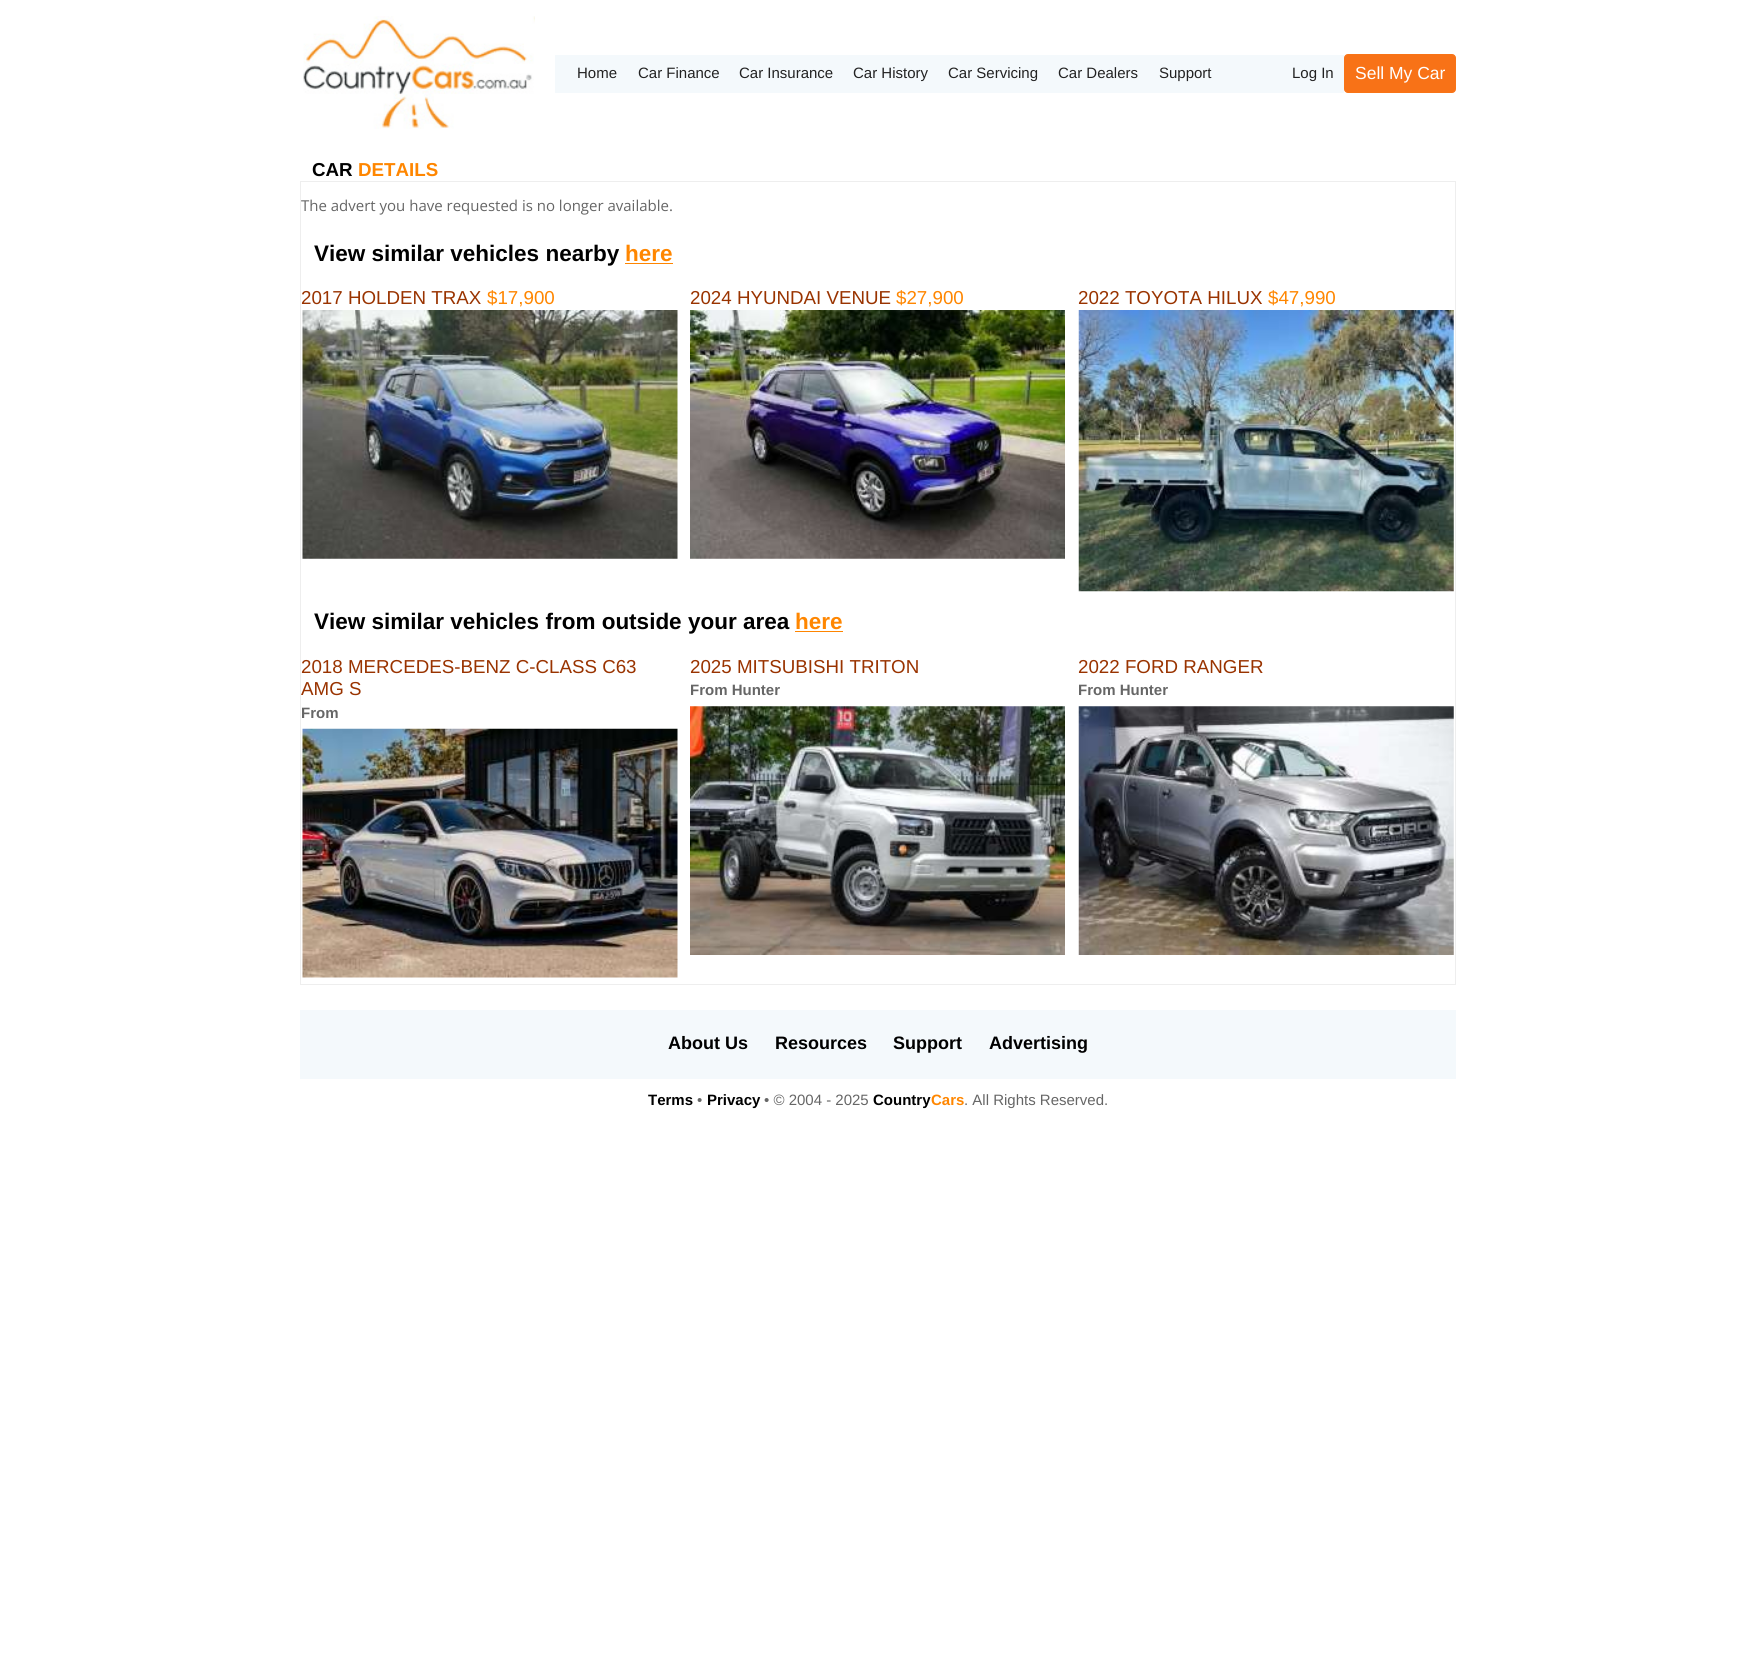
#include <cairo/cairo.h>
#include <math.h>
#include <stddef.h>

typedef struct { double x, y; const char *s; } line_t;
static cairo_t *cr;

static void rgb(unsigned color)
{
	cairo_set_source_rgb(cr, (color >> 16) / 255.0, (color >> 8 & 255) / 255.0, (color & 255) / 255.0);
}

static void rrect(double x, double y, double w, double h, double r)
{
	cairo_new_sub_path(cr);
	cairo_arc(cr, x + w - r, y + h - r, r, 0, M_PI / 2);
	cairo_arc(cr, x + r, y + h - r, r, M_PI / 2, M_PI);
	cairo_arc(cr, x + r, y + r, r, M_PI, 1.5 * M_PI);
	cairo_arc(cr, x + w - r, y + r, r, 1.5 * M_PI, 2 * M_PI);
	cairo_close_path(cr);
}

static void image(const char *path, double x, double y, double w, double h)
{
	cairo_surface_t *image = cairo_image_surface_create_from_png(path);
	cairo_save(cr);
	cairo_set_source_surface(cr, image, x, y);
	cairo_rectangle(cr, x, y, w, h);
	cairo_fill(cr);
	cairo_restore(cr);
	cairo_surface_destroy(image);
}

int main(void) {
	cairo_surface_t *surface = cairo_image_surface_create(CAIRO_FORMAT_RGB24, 1756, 1662);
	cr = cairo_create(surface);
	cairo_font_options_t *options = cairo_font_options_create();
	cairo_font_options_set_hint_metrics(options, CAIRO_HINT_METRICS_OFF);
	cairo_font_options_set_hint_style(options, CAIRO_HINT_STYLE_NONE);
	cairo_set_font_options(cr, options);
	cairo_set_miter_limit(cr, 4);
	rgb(0xffffff);
	cairo_paint(cr);
	image("img/1.png", 303, 16, 232, 113);
	rgb(0xf4f9fc);
	cairo_rectangle(cr, 555, 55, 789, 38);
	cairo_fill(cr);
	rgb(0xf87217);
	rrect(1344.5, 54.5, 111, 38, 3.5);
	cairo_fill_preserve(cr);
	rgb(0xf87417);
	cairo_set_line_width(cr, 1);
	cairo_stroke(cr);
	cairo_rectangle(cr, 300.5, 181.5, 1155, 803);
	rgb(0xeeeeee);
	cairo_stroke(cr);
	rgb(0xff8500);
	cairo_rectangle(cr, 625, 263, 48, 1);
	cairo_fill(cr);
	image("img/2.png", 302, 310, 376, 249);
	image("img/3.png", 690, 310, 375, 249);
	image("img/4.png", 1078, 310, 376, 282);
	cairo_rectangle(cr, 795, 631, 48, 1);
	cairo_fill(cr);
	image("img/5.png", 302, 728, 376, 250);
	image("img/6.png", 690, 706, 375, 249);
	image("img/7.png", 1078, 706, 376, 249);
	rgb(0xf4f9fc);
	cairo_rectangle(cr, 300, 1010, 1156, 69);
	cairo_fill(cr);
	cairo_select_font_face(cr, "Liberation Sans", CAIRO_FONT_SLANT_NORMAL, CAIRO_FONT_WEIGHT_NORMAL);
	cairo_set_font_size(cr, 15);
	rgb(0x222222);
	{
		static const line_t items[] = {
			{577, 78, "Home"},
			{638, 78, "Car Finance"},
			{739, 78, "Car Insurance"},
			{853, 78, "Car History"},
			{948, 78, "Car Servicing"},
			{1058, 78, "Car Dealers"},
			{1159, 78, "Support"},
			{1292, 78, "Log In"},
		};
		for (size_t i = 0; i < sizeof items / sizeof *items; i++) {
			cairo_move_to(cr, items[i].x, items[i].y);
			cairo_show_text(cr, items[i].s);
		}
	}
	cairo_set_font_size(cr, 17.5);
	rgb(0xffffff);
	cairo_move_to(cr, 1355, 79);
	cairo_show_text(cr, "Sell My Car");
	cairo_select_font_face(cr, "Liberation Sans", CAIRO_FONT_SLANT_NORMAL, CAIRO_FONT_WEIGHT_BOLD);
	cairo_set_font_size(cr, 18.75);
	rgb(0x000000);
	cairo_move_to(cr, 312, 176);
	cairo_show_text(cr, "CAR");
	rgb(0xff8600);
	cairo_move_to(cr, 358, 176);
	cairo_show_text(cr, "DETAILS");
	cairo_select_font_face(cr, "Open Sans", CAIRO_FONT_SLANT_NORMAL, CAIRO_FONT_WEIGHT_NORMAL);
	cairo_set_font_size(cr, 15);
	rgb(0x666666);
	cairo_move_to(cr, 301, 211);
	cairo_show_text(cr, "The advert you have requested is no longer available.");
	cairo_select_font_face(cr, "Liberation Sans", CAIRO_FONT_SLANT_NORMAL, CAIRO_FONT_WEIGHT_BOLD);
	cairo_set_font_size(cr, 22.5);
	rgb(0x000000);
	cairo_move_to(cr, 314, 261);
	cairo_show_text(cr, "View similar vehicles nearby");
	rgb(0xff8600);
	cairo_move_to(cr, 625, 261);
	cairo_show_text(cr, "here");
	cairo_select_font_face(cr, "Liberation Sans", CAIRO_FONT_SLANT_NORMAL, CAIRO_FONT_WEIGHT_NORMAL);
	cairo_set_font_size(cr, 18.75);
	rgb(0x993300);
	cairo_move_to(cr, 301, 304);
	cairo_show_text(cr, "2017 HOLDEN TRAX");
	rgb(0xff8600);
	cairo_move_to(cr, 487, 304);
	cairo_show_text(cr, "$17,900");
	rgb(0x993300);
	cairo_move_to(cr, 690, 304);
	cairo_show_text(cr, "2024 HYUNDAI VENUE");
	rgb(0xff8600);
	cairo_move_to(cr, 896, 304);
	cairo_show_text(cr, "$27,900");
	rgb(0x993300);
	cairo_move_to(cr, 1078, 304);
	cairo_show_text(cr, "2022 TOYOTA HILUX");
	rgb(0xff8600);
	cairo_move_to(cr, 1268, 304);
	cairo_show_text(cr, "$47,990");
	cairo_select_font_face(cr, "Liberation Sans", CAIRO_FONT_SLANT_NORMAL, CAIRO_FONT_WEIGHT_BOLD);
	cairo_set_font_size(cr, 22.5);
	rgb(0x000000);
	cairo_move_to(cr, 314, 629);
	cairo_show_text(cr, "View similar vehicles from outside your area");
	rgb(0xff8600);
	cairo_move_to(cr, 795, 629);
	cairo_show_text(cr, "here");
	cairo_select_font_face(cr, "Liberation Sans", CAIRO_FONT_SLANT_NORMAL, CAIRO_FONT_WEIGHT_NORMAL);
	cairo_set_font_size(cr, 18.75);
	rgb(0x993300);
	cairo_move_to(cr, 301, 673);
	cairo_show_text(cr, "2018 MERCEDES-BENZ C-CLASS C63");
	cairo_move_to(cr, 301, 695);
	cairo_show_text(cr, "AMG S");
	cairo_select_font_face(cr, "Liberation Sans", CAIRO_FONT_SLANT_NORMAL, CAIRO_FONT_WEIGHT_BOLD);
	cairo_set_font_size(cr, 15);
	rgb(0x666666);
	cairo_move_to(cr, 301, 718);
	cairo_show_text(cr, "From");
	cairo_select_font_face(cr, "Liberation Sans", CAIRO_FONT_SLANT_NORMAL, CAIRO_FONT_WEIGHT_NORMAL);
	cairo_set_font_size(cr, 18.75);
	rgb(0x993300);
	cairo_move_to(cr, 690, 673);
	cairo_show_text(cr, "2025 MITSUBISHI TRITON");
	cairo_select_font_face(cr, "Liberation Sans", CAIRO_FONT_SLANT_NORMAL, CAIRO_FONT_WEIGHT_BOLD);
	cairo_set_font_size(cr, 15);
	rgb(0x666666);
	cairo_move_to(cr, 690, 695);
	cairo_show_text(cr, "From Hunter");
	cairo_select_font_face(cr, "Liberation Sans", CAIRO_FONT_SLANT_NORMAL, CAIRO_FONT_WEIGHT_NORMAL);
	cairo_set_font_size(cr, 18.75);
	rgb(0x993300);
	cairo_move_to(cr, 1078, 673);
	cairo_show_text(cr, "2022 FORD RANGER");
	cairo_select_font_face(cr, "Liberation Sans", CAIRO_FONT_SLANT_NORMAL, CAIRO_FONT_WEIGHT_BOLD);
	cairo_set_font_size(cr, 15);
	rgb(0x666666);
	cairo_move_to(cr, 1078, 695);
	cairo_show_text(cr, "From Hunter");
	cairo_set_font_size(cr, 18);
	rgb(0x000000);
	{
		static const line_t items[] = {
			{668, 1049, "About Us"},
			{775, 1049, "Resources"},
			{893, 1049, "Support"},
			{989, 1049, "Advertising"},
		};
		for (size_t i = 0; i < sizeof items / sizeof *items; i++) {
			cairo_move_to(cr, items[i].x, items[i].y);
			cairo_show_text(cr, items[i].s);
		}
	}
	cairo_set_font_size(cr, 15);
	cairo_move_to(cr, 648, 1105);
	cairo_show_text(cr, "Terms");
	cairo_select_font_face(cr, "Liberation Sans", CAIRO_FONT_SLANT_NORMAL, CAIRO_FONT_WEIGHT_NORMAL);
	rgb(0x666666);
	cairo_move_to(cr, 697, 1105);
	cairo_show_text(cr, "•");
	cairo_select_font_face(cr, "Liberation Sans", CAIRO_FONT_SLANT_NORMAL, CAIRO_FONT_WEIGHT_BOLD);
	rgb(0x000000);
	cairo_move_to(cr, 707, 1105);
	cairo_show_text(cr, "Privacy");
	cairo_select_font_face(cr, "Liberation Sans", CAIRO_FONT_SLANT_NORMAL, CAIRO_FONT_WEIGHT_NORMAL);
	rgb(0x666666);
	cairo_move_to(cr, 764, 1105);
	cairo_show_text(cr, "• © 2004 - 2025");
	cairo_select_font_face(cr, "Liberation Sans", CAIRO_FONT_SLANT_NORMAL, CAIRO_FONT_WEIGHT_BOLD);
	rgb(0x000000);
	cairo_move_to(cr, 873, 1105);
	cairo_show_text(cr, "Country");
	rgb(0xff8600);
	cairo_move_to(cr, 931, 1105);
	cairo_show_text(cr, "Cars");
	cairo_select_font_face(cr, "Liberation Sans", CAIRO_FONT_SLANT_NORMAL, CAIRO_FONT_WEIGHT_NORMAL);
	rgb(0x666666);
	cairo_move_to(cr, 964, 1105);
	cairo_show_text(cr, ". All Rights Reserved.");
	cairo_surface_write_to_png(surface, "page.png");
	cairo_font_options_destroy(options);
	cairo_destroy(cr);
	cairo_surface_destroy(surface);
	return 0;
}
